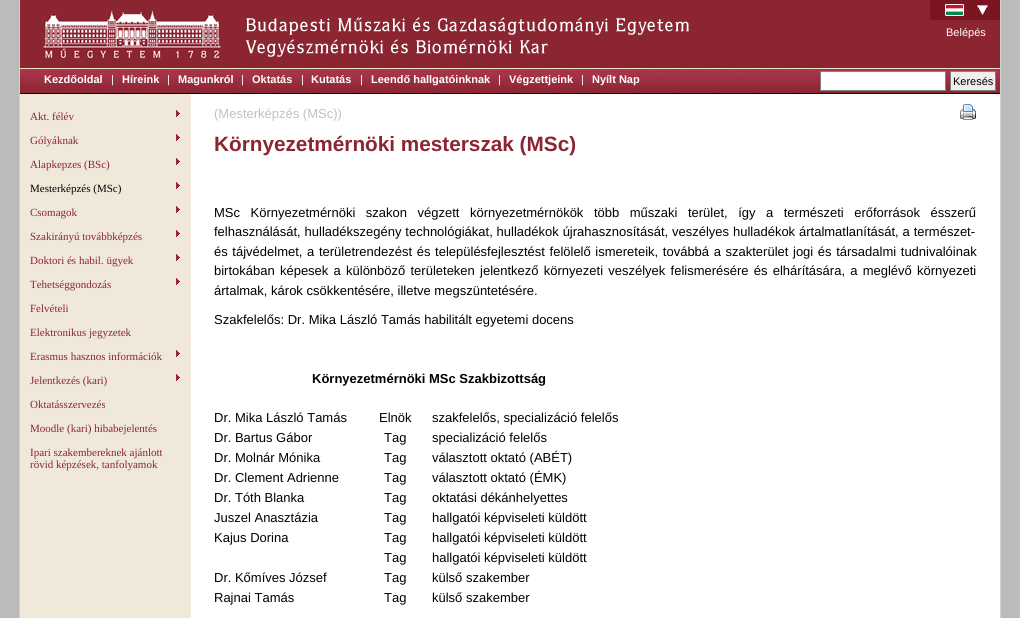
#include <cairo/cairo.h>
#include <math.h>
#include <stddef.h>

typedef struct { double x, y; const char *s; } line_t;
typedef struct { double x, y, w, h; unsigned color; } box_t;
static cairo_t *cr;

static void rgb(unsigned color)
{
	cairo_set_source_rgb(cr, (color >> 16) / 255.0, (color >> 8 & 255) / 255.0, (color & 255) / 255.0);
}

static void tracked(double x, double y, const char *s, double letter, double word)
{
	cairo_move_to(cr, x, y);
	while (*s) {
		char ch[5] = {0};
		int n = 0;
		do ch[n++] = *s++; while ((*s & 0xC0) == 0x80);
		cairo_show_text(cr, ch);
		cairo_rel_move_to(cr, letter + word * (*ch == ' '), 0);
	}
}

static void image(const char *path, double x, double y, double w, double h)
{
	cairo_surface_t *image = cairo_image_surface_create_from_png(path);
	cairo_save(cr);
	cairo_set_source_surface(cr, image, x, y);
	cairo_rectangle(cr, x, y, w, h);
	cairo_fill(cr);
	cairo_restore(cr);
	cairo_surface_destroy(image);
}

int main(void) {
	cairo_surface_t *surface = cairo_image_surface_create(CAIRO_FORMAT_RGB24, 1020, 618);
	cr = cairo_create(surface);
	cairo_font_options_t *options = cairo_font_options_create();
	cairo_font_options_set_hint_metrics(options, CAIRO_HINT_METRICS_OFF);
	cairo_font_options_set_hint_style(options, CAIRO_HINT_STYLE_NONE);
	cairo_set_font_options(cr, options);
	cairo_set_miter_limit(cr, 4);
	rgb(0xbbbbbb);
	cairo_paint(cr);
	{
		static const box_t items[] = {
			{191, 94, 809, 524, 0xffffff},
			{1000, 0, 1, 618, 0xd0d0d0},
			{19, 0, 1, 618, 0xd0d0d0},
			{20, 0, 980, 68, 0x8c2532},
		};
		for (size_t i = 0; i < sizeof items / sizeof *items; i++) {
			rgb(items[i].color);
			cairo_rectangle(cr, items[i].x, items[i].y, items[i].w, items[i].h);
			cairo_fill(cr);
		}
	}
	image("img/1.png", 43, 10, 178, 48);
	rgb(0x7c1522);
	cairo_rectangle(cr, 930, 0, 70, 20);
	cairo_fill(cr);
	image("img/2.png", 945, 4, 19, 12);
	image("img/3.png", 977, 5, 11, 10);
	image("img/4.png", 245, 17, 444, 40);
	image("img/5.png", 20, 68, 980, 26);
	rgb(0xffffff);
	cairo_rectangle(cr, 820.5, 71.5, 125, 19);
	cairo_fill_preserve(cr);
	rgb(0x808080);
	cairo_set_line_width(cr, 1);
	cairo_stroke(cr);
	rgb(0xefefef);
	cairo_rectangle(cr, 950.5, 71.5, 45, 19);
	cairo_fill_preserve(cr);
	rgb(0x808080);
	cairo_stroke(cr);
	rgb(0xf0e8d9);
	cairo_rectangle(cr, 20, 94, 171, 524);
	cairo_fill(cr);
	image("img/6.png", 176, 110, 4, 7);
	image("img/6.png", 176, 134, 4, 7);
	image("img/6.png", 176, 158, 4, 7);
	image("img/6.png", 176, 182, 4, 7);
	image("img/6.png", 176, 206, 4, 7);
	image("img/6.png", 176, 230, 4, 7);
	image("img/6.png", 176, 254, 4, 7);
	image("img/6.png", 176, 278, 4, 7);
	image("img/6.png", 176, 350, 4, 7);
	image("img/6.png", 176, 374, 4, 7);
	image("img/7.png", 960, 104, 16, 16);
	cairo_select_font_face(cr, "Liberation Sans", CAIRO_FONT_SLANT_NORMAL, CAIRO_FONT_WEIGHT_NORMAL);
	cairo_set_font_size(cr, 11);
	rgb(0xffffff);
	cairo_move_to(cr, 946, 36);
	cairo_show_text(cr, "Belépés");
	cairo_select_font_face(cr, "Liberation Sans", CAIRO_FONT_SLANT_NORMAL, CAIRO_FONT_WEIGHT_BOLD);
	cairo_move_to(cr, 44, 83);
	cairo_show_text(cr, "Kezdőoldal");
	cairo_select_font_face(cr, "Liberation Sans", CAIRO_FONT_SLANT_NORMAL, CAIRO_FONT_WEIGHT_NORMAL);
	cairo_move_to(cr, 111, 83);
	cairo_show_text(cr, "|");
	cairo_select_font_face(cr, "Liberation Sans", CAIRO_FONT_SLANT_NORMAL, CAIRO_FONT_WEIGHT_BOLD);
	cairo_move_to(cr, 122, 83);
	cairo_show_text(cr, "Híreink");
	cairo_select_font_face(cr, "Liberation Sans", CAIRO_FONT_SLANT_NORMAL, CAIRO_FONT_WEIGHT_NORMAL);
	cairo_move_to(cr, 167, 83);
	cairo_show_text(cr, "|");
	cairo_select_font_face(cr, "Liberation Sans", CAIRO_FONT_SLANT_NORMAL, CAIRO_FONT_WEIGHT_BOLD);
	cairo_move_to(cr, 178, 83);
	cairo_show_text(cr, "Magunkról");
	cairo_select_font_face(cr, "Liberation Sans", CAIRO_FONT_SLANT_NORMAL, CAIRO_FONT_WEIGHT_NORMAL);
	cairo_move_to(cr, 241, 83);
	cairo_show_text(cr, "|");
	cairo_select_font_face(cr, "Liberation Sans", CAIRO_FONT_SLANT_NORMAL, CAIRO_FONT_WEIGHT_BOLD);
	rgb(0xffffe8);
	cairo_move_to(cr, 252, 83);
	cairo_show_text(cr, "Oktatás");
	cairo_select_font_face(cr, "Liberation Sans", CAIRO_FONT_SLANT_NORMAL, CAIRO_FONT_WEIGHT_NORMAL);
	rgb(0xffffff);
	cairo_move_to(cr, 301, 83);
	cairo_show_text(cr, "|");
	cairo_select_font_face(cr, "Liberation Sans", CAIRO_FONT_SLANT_NORMAL, CAIRO_FONT_WEIGHT_BOLD);
	cairo_move_to(cr, 311, 83);
	cairo_show_text(cr, "Kutatás");
	cairo_select_font_face(cr, "Liberation Sans", CAIRO_FONT_SLANT_NORMAL, CAIRO_FONT_WEIGHT_NORMAL);
	cairo_move_to(cr, 360, 83);
	cairo_show_text(cr, "|");
	cairo_select_font_face(cr, "Liberation Sans", CAIRO_FONT_SLANT_NORMAL, CAIRO_FONT_WEIGHT_BOLD);
	cairo_move_to(cr, 371, 83);
	cairo_show_text(cr, "Leendő hallgatóinknak");
	cairo_select_font_face(cr, "Liberation Sans", CAIRO_FONT_SLANT_NORMAL, CAIRO_FONT_WEIGHT_NORMAL);
	cairo_move_to(cr, 498, 83);
	cairo_show_text(cr, "|");
	cairo_select_font_face(cr, "Liberation Sans", CAIRO_FONT_SLANT_NORMAL, CAIRO_FONT_WEIGHT_BOLD);
	cairo_move_to(cr, 509, 83);
	cairo_show_text(cr, "Végzettjeink");
	cairo_select_font_face(cr, "Liberation Sans", CAIRO_FONT_SLANT_NORMAL, CAIRO_FONT_WEIGHT_NORMAL);
	cairo_move_to(cr, 581, 83);
	cairo_show_text(cr, "|");
	cairo_select_font_face(cr, "Liberation Sans", CAIRO_FONT_SLANT_NORMAL, CAIRO_FONT_WEIGHT_BOLD);
	cairo_move_to(cr, 592, 83);
	cairo_show_text(cr, "Nyílt Nap");
	cairo_select_font_face(cr, "Liberation Sans", CAIRO_FONT_SLANT_NORMAL, CAIRO_FONT_WEIGHT_NORMAL);
	rgb(0x000000);
	cairo_move_to(cr, 953, 85);
	cairo_show_text(cr, "Keresés");
	cairo_select_font_face(cr, "Liberation Serif", CAIRO_FONT_SLANT_NORMAL, CAIRO_FONT_WEIGHT_NORMAL);
	rgb(0x8c2532);
	{
		static const line_t items[] = {
			{30, 120, "Akt. félév"},
			{30, 144, "Gólyáknak"},
			{30, 168, "Alapkepzes (BSc)"},
		};
		for (size_t i = 0; i < sizeof items / sizeof *items; i++) {
			cairo_move_to(cr, items[i].x, items[i].y);
			cairo_show_text(cr, items[i].s);
		}
	}
	rgb(0x000000);
	cairo_move_to(cr, 30, 192);
	cairo_show_text(cr, "Mesterképzés (MSc)");
	rgb(0x8c2532);
	{
		static const line_t items[] = {
			{30, 216, "Csomagok"},
			{30, 240, "Szakirányú továbbképzés"},
			{30, 264, "Doktori és habil. ügyek"},
			{30, 288, "Tehetséggondozás"},
			{30, 312, "Felvételi"},
			{30, 336, "Elektronikus jegyzetek"},
			{30, 360, "Erasmus hasznos információk"},
			{30, 384, "Jelentkezés (kari)"},
			{30, 408, "Oktatásszervezés"},
			{30, 432, "Moodle (kari) hibabejelentés"},
			{30, 456, "Ipari szakembereknek ajánlott"},
			{30, 468, "rövid képzések, tanfolyamok"},
		};
		for (size_t i = 0; i < sizeof items / sizeof *items; i++) {
			cairo_move_to(cr, items[i].x, items[i].y);
			cairo_show_text(cr, items[i].s);
		}
	}
	cairo_select_font_face(cr, "Liberation Sans", CAIRO_FONT_SLANT_NORMAL, CAIRO_FONT_WEIGHT_NORMAL);
	cairo_set_font_size(cr, 13);
	rgb(0xc0c0c0);
	cairo_move_to(cr, 214, 118);
	cairo_show_text(cr, "(Mesterképzés (MSc))");
	cairo_select_font_face(cr, "Liberation Sans", CAIRO_FONT_SLANT_NORMAL, CAIRO_FONT_WEIGHT_BOLD);
	cairo_set_font_size(cr, 20.75);
	rgb(0x8c2532);
	cairo_move_to(cr, 214, 151);
	cairo_show_text(cr, "Környezetmérnöki mesterszak (MSc)");
	cairo_select_font_face(cr, "Liberation Sans", CAIRO_FONT_SLANT_NORMAL, CAIRO_FONT_WEIGHT_NORMAL);
	cairo_set_font_size(cr, 13);
	rgb(0x000000);
	tracked(214, 217, "MSc Környezetmérnöki szakon végzett környezetmérnökök több műszaki terület, így a természeti erőforrások ésszerű", 0, 6.9);
	tracked(214, 236, "felhasználását, hulladékszegény technológiákat, hulladékok újrahasznosítását, veszélyes hulladékok ártalmatlanítását, a természet-", 0, 0.25);
	tracked(214, 256, "és tájvédelmet, a területrendezést és településfejlesztést felölelő ismereteik, továbbá a szakterület jogi és társadalmi tudnivalóinak", 0, 1);
	tracked(214, 275, "birtokában képesek a különböző területeken jelentkező környezeti veszélyek felismerésére és elhárítására, a meglévő környezeti", 0, 1.6);
	cairo_move_to(cr, 214, 295);
	cairo_show_text(cr, "ártalmak, károk csökkentésére, illetve megszüntetésére.");
	cairo_move_to(cr, 214, 324);
	cairo_show_text(cr, "Szakfelelős: Dr. Mika László Tamás habilitált egyetemi docens");
	cairo_select_font_face(cr, "Liberation Sans", CAIRO_FONT_SLANT_NORMAL, CAIRO_FONT_WEIGHT_BOLD);
	cairo_move_to(cr, 312, 383);
	cairo_show_text(cr, "Környezetmérnöki MSc Szakbizottság");
	cairo_select_font_face(cr, "Liberation Sans", CAIRO_FONT_SLANT_NORMAL, CAIRO_FONT_WEIGHT_NORMAL);
	{
		static const line_t items[] = {
			{214, 422, "Dr. Mika László Tamás"},
			{379, 422, "Elnök"},
			{432, 422, "szakfelelős, specializáció felelős"},
			{214, 442, "Dr. Bartus Gábor"},
			{384, 442, "Tag"},
			{432, 442, "specializáció felelős"},
			{214, 462, "Dr. Molnár Mónika"},
			{384, 462, "Tag"},
			{432, 462, "választott oktató (ABÉT)"},
			{214, 482, "Dr. Clement Adrienne"},
			{384, 482, "Tag"},
			{432, 482, "választott oktató (ÉMK)"},
			{214, 502, "Dr. Tóth Blanka"},
			{384, 502, "Tag"},
			{432, 502, "oktatási dékánhelyettes"},
			{214, 522, "Juszel Anasztázia"},
			{384, 522, "Tag"},
			{432, 522, "hallgatói képviseleti küldött"},
			{214, 542, "Kajus Dorina"},
			{384, 542, "Tag"},
			{432, 542, "hallgatói képviseleti küldött"},
			{384, 562, "Tag"},
			{432, 562, "hallgatói képviseleti küldött"},
			{214, 582, "Dr. Kőmíves József"},
			{384, 582, "Tag"},
			{432, 582, "külső szakember"},
			{214, 602, "Rajnai Tamás"},
			{384, 602, "Tag"},
			{432, 602, "külső szakember"},
		};
		for (size_t i = 0; i < sizeof items / sizeof *items; i++) {
			cairo_move_to(cr, items[i].x, items[i].y);
			cairo_show_text(cr, items[i].s);
		}
	}
	cairo_surface_write_to_png(surface, "page.png");
	cairo_font_options_destroy(options);
	cairo_destroy(cr);
	cairo_surface_destroy(surface);
	return 0;
}
